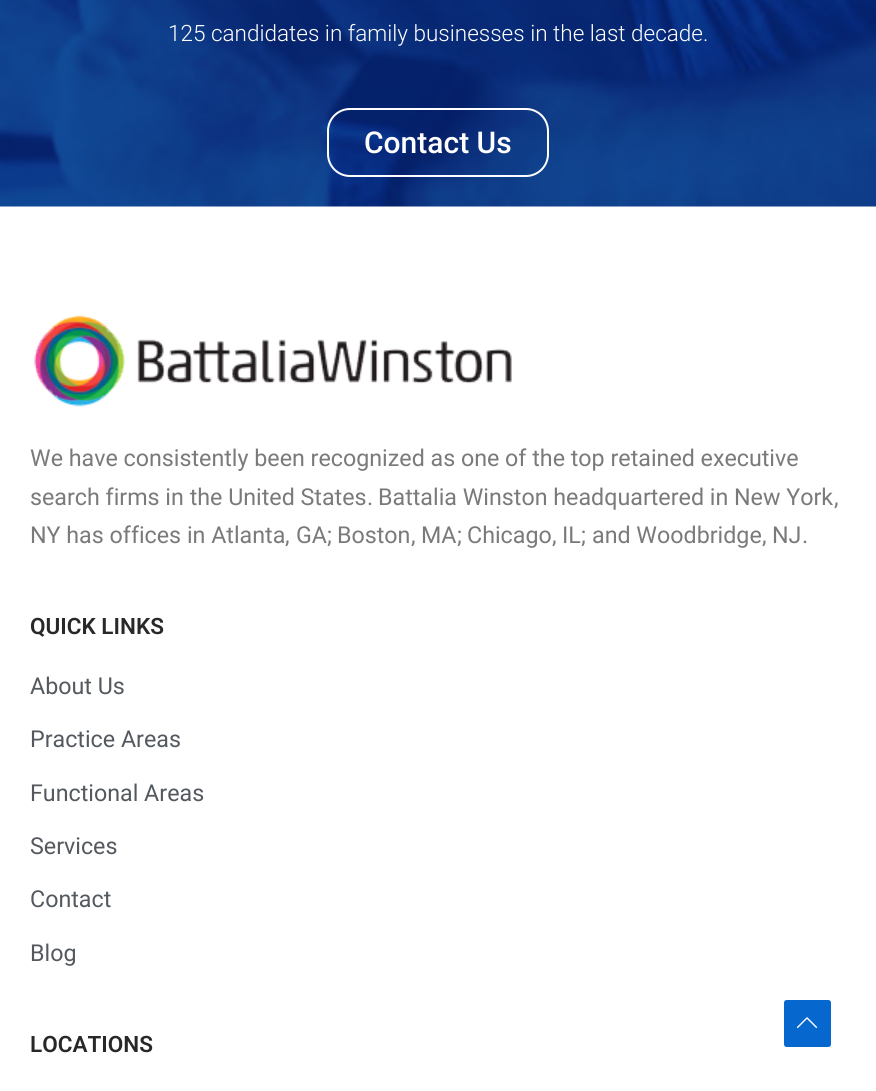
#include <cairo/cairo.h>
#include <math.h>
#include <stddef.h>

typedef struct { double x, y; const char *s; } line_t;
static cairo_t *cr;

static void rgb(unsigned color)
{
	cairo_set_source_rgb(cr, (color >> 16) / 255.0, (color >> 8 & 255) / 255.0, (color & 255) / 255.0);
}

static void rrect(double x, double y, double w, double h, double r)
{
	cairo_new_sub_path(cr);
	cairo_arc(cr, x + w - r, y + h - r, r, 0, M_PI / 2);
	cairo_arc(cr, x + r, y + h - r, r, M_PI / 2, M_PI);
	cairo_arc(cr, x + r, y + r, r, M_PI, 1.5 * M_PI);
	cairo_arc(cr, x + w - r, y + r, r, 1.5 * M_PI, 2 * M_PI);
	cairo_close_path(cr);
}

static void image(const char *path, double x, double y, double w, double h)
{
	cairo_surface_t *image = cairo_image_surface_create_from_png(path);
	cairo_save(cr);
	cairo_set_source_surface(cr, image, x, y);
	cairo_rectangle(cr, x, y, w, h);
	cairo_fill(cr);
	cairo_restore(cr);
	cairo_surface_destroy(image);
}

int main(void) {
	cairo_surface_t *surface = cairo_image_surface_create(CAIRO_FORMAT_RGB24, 876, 1091);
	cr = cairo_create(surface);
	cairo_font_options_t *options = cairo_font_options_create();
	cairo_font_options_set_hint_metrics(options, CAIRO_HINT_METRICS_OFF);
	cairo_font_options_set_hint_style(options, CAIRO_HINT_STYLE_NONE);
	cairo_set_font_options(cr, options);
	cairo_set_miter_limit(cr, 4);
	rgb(0xffffff);
	cairo_paint(cr);
	image("img/1.png", 0, 0, 876, 207);
	rrect(328, 109, 220, 67, 22);
	rgb(0xffffff);
	cairo_stroke(cr);
	image("img/2.png", 34, 315, 478, 92);
	rgb(0x0667cf);
	cairo_new_path(cr);
	cairo_move_to(cr, 828, 1047);
	cairo_line_to(cr, 787, 1047);
	cairo_curve_to(cr, 785, 1047, 784, 1046, 784, 1044);
	cairo_line_to(cr, 784, 1003);
	cairo_curve_to(cr, 784, 1001, 785, 1000, 787, 1000);
	cairo_line_to(cr, 828, 1000);
	cairo_curve_to(cr, 830, 1000, 831, 1001, 831, 1003);
	cairo_line_to(cr, 831, 1044);
	cairo_curve_to(cr, 831, 1046, 830, 1047, 828, 1047);
	cairo_close_path(cr);
	cairo_fill(cr);
	image("img/3.png", 796, 1017, 22, 11);
	cairo_select_font_face(cr, "Roboto Light", CAIRO_FONT_SLANT_NORMAL, CAIRO_FONT_WEIGHT_NORMAL);
	cairo_set_font_size(cr, 22.5);
	rgb(0xffffff);
	cairo_move_to(cr, 168, 41);
	cairo_show_text(cr, "125 candidates in family businesses in the last decade.");
	cairo_select_font_face(cr, "Roboto Medium", CAIRO_FONT_SLANT_NORMAL, CAIRO_FONT_WEIGHT_NORMAL);
	cairo_set_font_size(cr, 30);
	cairo_move_to(cr, 364, 153);
	cairo_show_text(cr, "Contact Us");
	cairo_select_font_face(cr, "Roboto", CAIRO_FONT_SLANT_NORMAL, CAIRO_FONT_WEIGHT_NORMAL);
	cairo_set_font_size(cr, 23.25);
	rgb(0x7a7a7a);
	cairo_move_to(cr, 30, 466);
	cairo_show_text(cr, "We have consistently been recognized as one of the top retained executive");
	cairo_move_to(cr, 30, 505);
	cairo_show_text(cr, "search firms in the United States");
	cairo_select_font_face(cr, "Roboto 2", CAIRO_FONT_SLANT_NORMAL, CAIRO_FONT_WEIGHT_NORMAL);
	cairo_move_to(cr, 367, 505);
	cairo_show_text(cr, ".");
	cairo_select_font_face(cr, "Roboto", CAIRO_FONT_SLANT_NORMAL, CAIRO_FONT_WEIGHT_NORMAL);
	cairo_move_to(cr, 378, 505);
	cairo_show_text(cr, "Battalia Winston headquartered in New York");
	cairo_select_font_face(cr, "Roboto 2", CAIRO_FONT_SLANT_NORMAL, CAIRO_FONT_WEIGHT_NORMAL);
	cairo_move_to(cr, 834, 505);
	cairo_show_text(cr, ",");
	cairo_select_font_face(cr, "Roboto", CAIRO_FONT_SLANT_NORMAL, CAIRO_FONT_WEIGHT_NORMAL);
	cairo_move_to(cr, 30, 543);
	cairo_show_text(cr, "NY has offices in Atlanta");
	cairo_select_font_face(cr, "Roboto 2", CAIRO_FONT_SLANT_NORMAL, CAIRO_FONT_WEIGHT_NORMAL);
	cairo_move_to(cr, 285, 543);
	cairo_show_text(cr, ",");
	cairo_select_font_face(cr, "Roboto", CAIRO_FONT_SLANT_NORMAL, CAIRO_FONT_WEIGHT_NORMAL);
	cairo_move_to(cr, 296, 543);
	cairo_show_text(cr, "GA");
	cairo_select_font_face(cr, "Roboto 2", CAIRO_FONT_SLANT_NORMAL, CAIRO_FONT_WEIGHT_NORMAL);
	cairo_move_to(cr, 327, 543);
	cairo_show_text(cr, ";");
	cairo_select_font_face(cr, "Roboto", CAIRO_FONT_SLANT_NORMAL, CAIRO_FONT_WEIGHT_NORMAL);
	cairo_move_to(cr, 337, 543);
	cairo_show_text(cr, "Boston");
	cairo_select_font_face(cr, "Roboto 2", CAIRO_FONT_SLANT_NORMAL, CAIRO_FONT_WEIGHT_NORMAL);
	cairo_move_to(cr, 411, 543);
	cairo_show_text(cr, ",");
	cairo_select_font_face(cr, "Roboto", CAIRO_FONT_SLANT_NORMAL, CAIRO_FONT_WEIGHT_NORMAL);
	cairo_move_to(cr, 421, 543);
	cairo_show_text(cr, "MA");
	cairo_select_font_face(cr, "Roboto 2", CAIRO_FONT_SLANT_NORMAL, CAIRO_FONT_WEIGHT_NORMAL);
	cairo_move_to(cr, 457, 543);
	cairo_show_text(cr, ";");
	cairo_select_font_face(cr, "Roboto", CAIRO_FONT_SLANT_NORMAL, CAIRO_FONT_WEIGHT_NORMAL);
	cairo_move_to(cr, 467, 543);
	cairo_show_text(cr, "Chicago");
	cairo_select_font_face(cr, "Roboto 2", CAIRO_FONT_SLANT_NORMAL, CAIRO_FONT_WEIGHT_NORMAL);
	cairo_move_to(cr, 552, 543);
	cairo_show_text(cr, ",");
	cairo_select_font_face(cr, "Roboto", CAIRO_FONT_SLANT_NORMAL, CAIRO_FONT_WEIGHT_NORMAL);
	cairo_move_to(cr, 562, 543);
	cairo_show_text(cr, "IL");
	cairo_select_font_face(cr, "Roboto 2", CAIRO_FONT_SLANT_NORMAL, CAIRO_FONT_WEIGHT_NORMAL);
	cairo_move_to(cr, 581, 543);
	cairo_show_text(cr, ";");
	cairo_select_font_face(cr, "Roboto", CAIRO_FONT_SLANT_NORMAL, CAIRO_FONT_WEIGHT_NORMAL);
	cairo_move_to(cr, 592, 543);
	cairo_show_text(cr, "and Woodbridge");
	cairo_select_font_face(cr, "Roboto 2", CAIRO_FONT_SLANT_NORMAL, CAIRO_FONT_WEIGHT_NORMAL);
	cairo_move_to(cr, 762, 543);
	cairo_show_text(cr, ",");
	cairo_select_font_face(cr, "Roboto", CAIRO_FONT_SLANT_NORMAL, CAIRO_FONT_WEIGHT_NORMAL);
	cairo_move_to(cr, 772, 543);
	cairo_show_text(cr, "NJ");
	cairo_select_font_face(cr, "Roboto 2", CAIRO_FONT_SLANT_NORMAL, CAIRO_FONT_WEIGHT_NORMAL);
	cairo_move_to(cr, 802, 543);
	cairo_show_text(cr, ".");
	cairo_select_font_face(cr, "Roboto SemiBold", CAIRO_FONT_SLANT_NORMAL, CAIRO_FONT_WEIGHT_NORMAL);
	cairo_set_font_size(cr, 22.5);
	rgb(0x282828);
	cairo_move_to(cr, 30, 634);
	cairo_show_text(cr, "QUICK LINKS");
	cairo_select_font_face(cr, "Roboto", CAIRO_FONT_SLANT_NORMAL, CAIRO_FONT_WEIGHT_NORMAL);
	cairo_set_font_size(cr, 23.25);
	rgb(0x54595f);
	{
		static const line_t items[] = {
			{30, 694, "About Us"},
			{30, 747, "Practice Areas"},
			{30, 801, "Functional Areas"},
			{30, 854, "Services"},
			{30, 907, "Contact"},
			{30, 961, "Blog"},
		};
		for (size_t i = 0; i < sizeof items / sizeof *items; i++) {
			cairo_move_to(cr, items[i].x, items[i].y);
			cairo_show_text(cr, items[i].s);
		}
	}
	cairo_select_font_face(cr, "Roboto SemiBold", CAIRO_FONT_SLANT_NORMAL, CAIRO_FONT_WEIGHT_NORMAL);
	cairo_set_font_size(cr, 22.5);
	rgb(0x282828);
	cairo_move_to(cr, 30, 1052);
	cairo_show_text(cr, "LOCATIONS");
	cairo_surface_write_to_png(surface, "page.png");
	cairo_font_options_destroy(options);
	cairo_destroy(cr);
	cairo_surface_destroy(surface);
	return 0;
}
